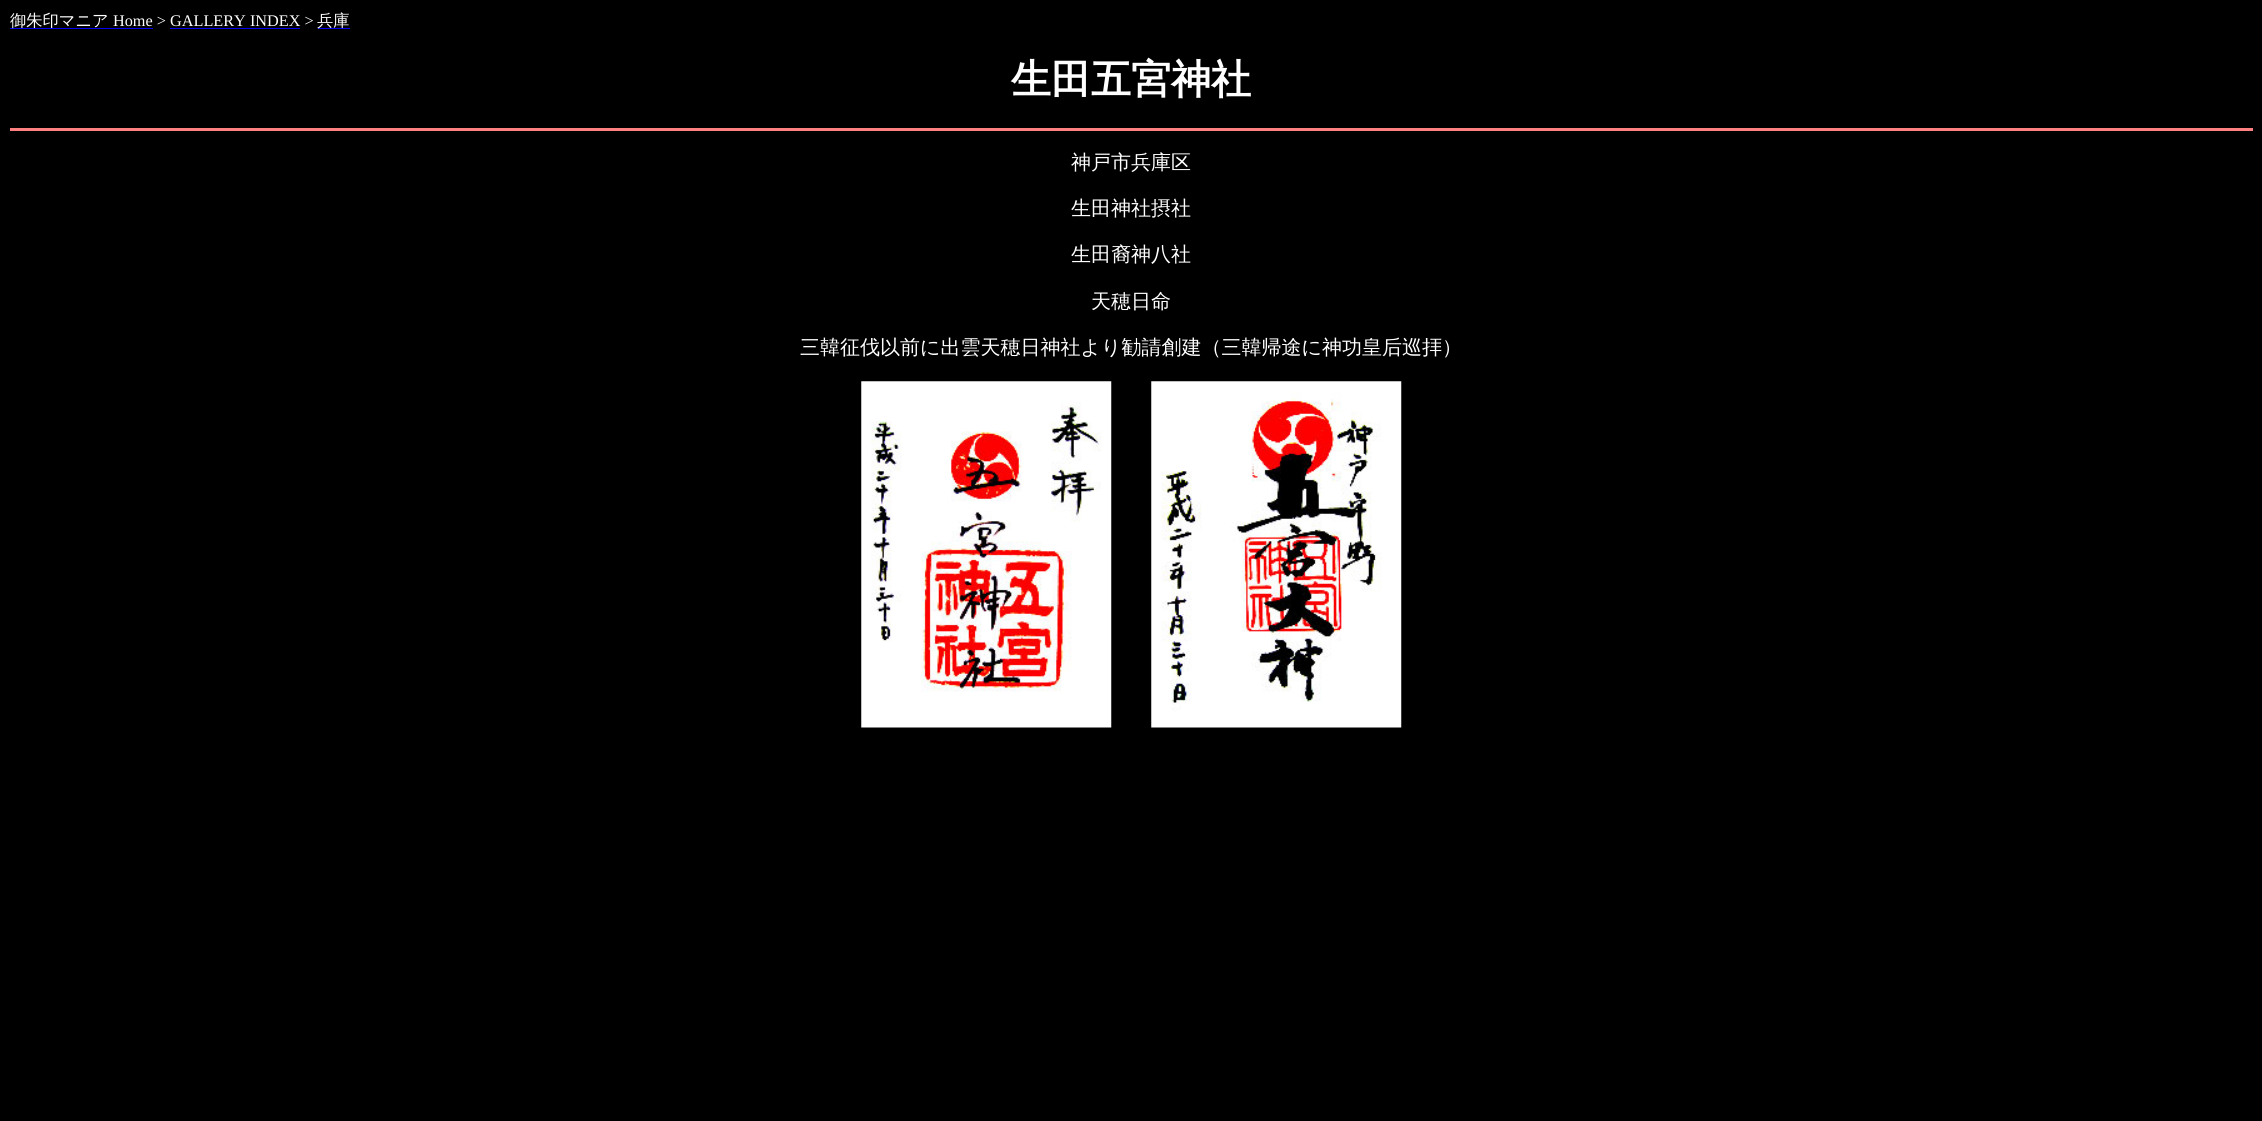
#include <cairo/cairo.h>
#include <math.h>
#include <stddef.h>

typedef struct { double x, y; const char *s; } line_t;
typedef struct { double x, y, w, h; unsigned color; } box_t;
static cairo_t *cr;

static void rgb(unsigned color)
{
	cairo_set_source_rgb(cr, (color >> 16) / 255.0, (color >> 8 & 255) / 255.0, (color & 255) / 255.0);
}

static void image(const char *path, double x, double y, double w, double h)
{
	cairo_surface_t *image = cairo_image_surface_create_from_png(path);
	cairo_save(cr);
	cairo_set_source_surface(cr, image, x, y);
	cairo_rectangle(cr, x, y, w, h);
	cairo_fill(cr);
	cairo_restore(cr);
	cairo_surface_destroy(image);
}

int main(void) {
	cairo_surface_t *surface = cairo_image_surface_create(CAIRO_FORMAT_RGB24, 2262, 1121);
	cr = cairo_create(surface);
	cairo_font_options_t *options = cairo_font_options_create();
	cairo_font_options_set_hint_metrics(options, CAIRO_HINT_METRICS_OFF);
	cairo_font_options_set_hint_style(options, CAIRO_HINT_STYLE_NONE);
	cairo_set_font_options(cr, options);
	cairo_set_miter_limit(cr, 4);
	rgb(0x000000);
	cairo_paint(cr);
	{
		static const box_t items[] = {
			{10, 28, 143, 1, 0x0000ee},
			{170, 28, 130, 1, 0x0000ee},
			{318, 28, 32, 1, 0x0000ee},
			{10, 128, 2243, 3, 0xff8080},
		};
		for (size_t i = 0; i < sizeof items / sizeof *items; i++) {
			rgb(items[i].color);
			cairo_rectangle(cr, items[i].x, items[i].y, items[i].w, items[i].h);
			cairo_fill(cr);
		}
	}
	image("img/1.png", 861, 381, 251, 347);
	image("img/2.png", 1151, 381, 251, 347);
	cairo_select_font_face(cr, "WenQuanYi Zen Hei Medium", CAIRO_FONT_SLANT_NORMAL, CAIRO_FONT_WEIGHT_NORMAL);
	cairo_set_font_size(cr, 16.25);
	rgb(0xffffff);
	cairo_move_to(cr, 10, 26);
	cairo_show_text(cr, "御朱印マニア");
	cairo_select_font_face(cr, "Liberation Serif", CAIRO_FONT_SLANT_NORMAL, CAIRO_FONT_WEIGHT_NORMAL);
	cairo_move_to(cr, 113, 26);
	cairo_show_text(cr, "Home > GALLERY INDEX >");
	cairo_select_font_face(cr, "WenQuanYi Zen Hei Medium", CAIRO_FONT_SLANT_NORMAL, CAIRO_FONT_WEIGHT_NORMAL);
	cairo_move_to(cr, 317, 26);
	cairo_show_text(cr, "兵庫");
	cairo_select_font_face(cr, "WenQuanYi Zen Hei", CAIRO_FONT_SLANT_NORMAL, CAIRO_FONT_WEIGHT_BOLD);
	cairo_set_font_size(cr, 40);
	cairo_move_to(cr, 1011, 93);
	cairo_show_text(cr, "生田五宮神社");
	cairo_select_font_face(cr, "WenQuanYi Zen Hei Medium", CAIRO_FONT_SLANT_NORMAL, CAIRO_FONT_WEIGHT_NORMAL);
	cairo_set_font_size(cr, 20);
	{
		static const line_t items[] = {
			{1071, 169, "神戸市兵庫区"},
			{1071, 215, "生田神社摂社"},
			{1071, 261, "生田裔神八社"},
			{1091, 308, "天穂日命"},
			{800, 354, "三韓征伐以前に出雲天穂日神社より勧請創建（三韓帰途に神功皇后巡拝）"},
		};
		for (size_t i = 0; i < sizeof items / sizeof *items; i++) {
			cairo_move_to(cr, items[i].x, items[i].y);
			cairo_show_text(cr, items[i].s);
		}
	}
	cairo_surface_write_to_png(surface, "page.png");
	cairo_font_options_destroy(options);
	cairo_destroy(cr);
	cairo_surface_destroy(surface);
	return 0;
}
